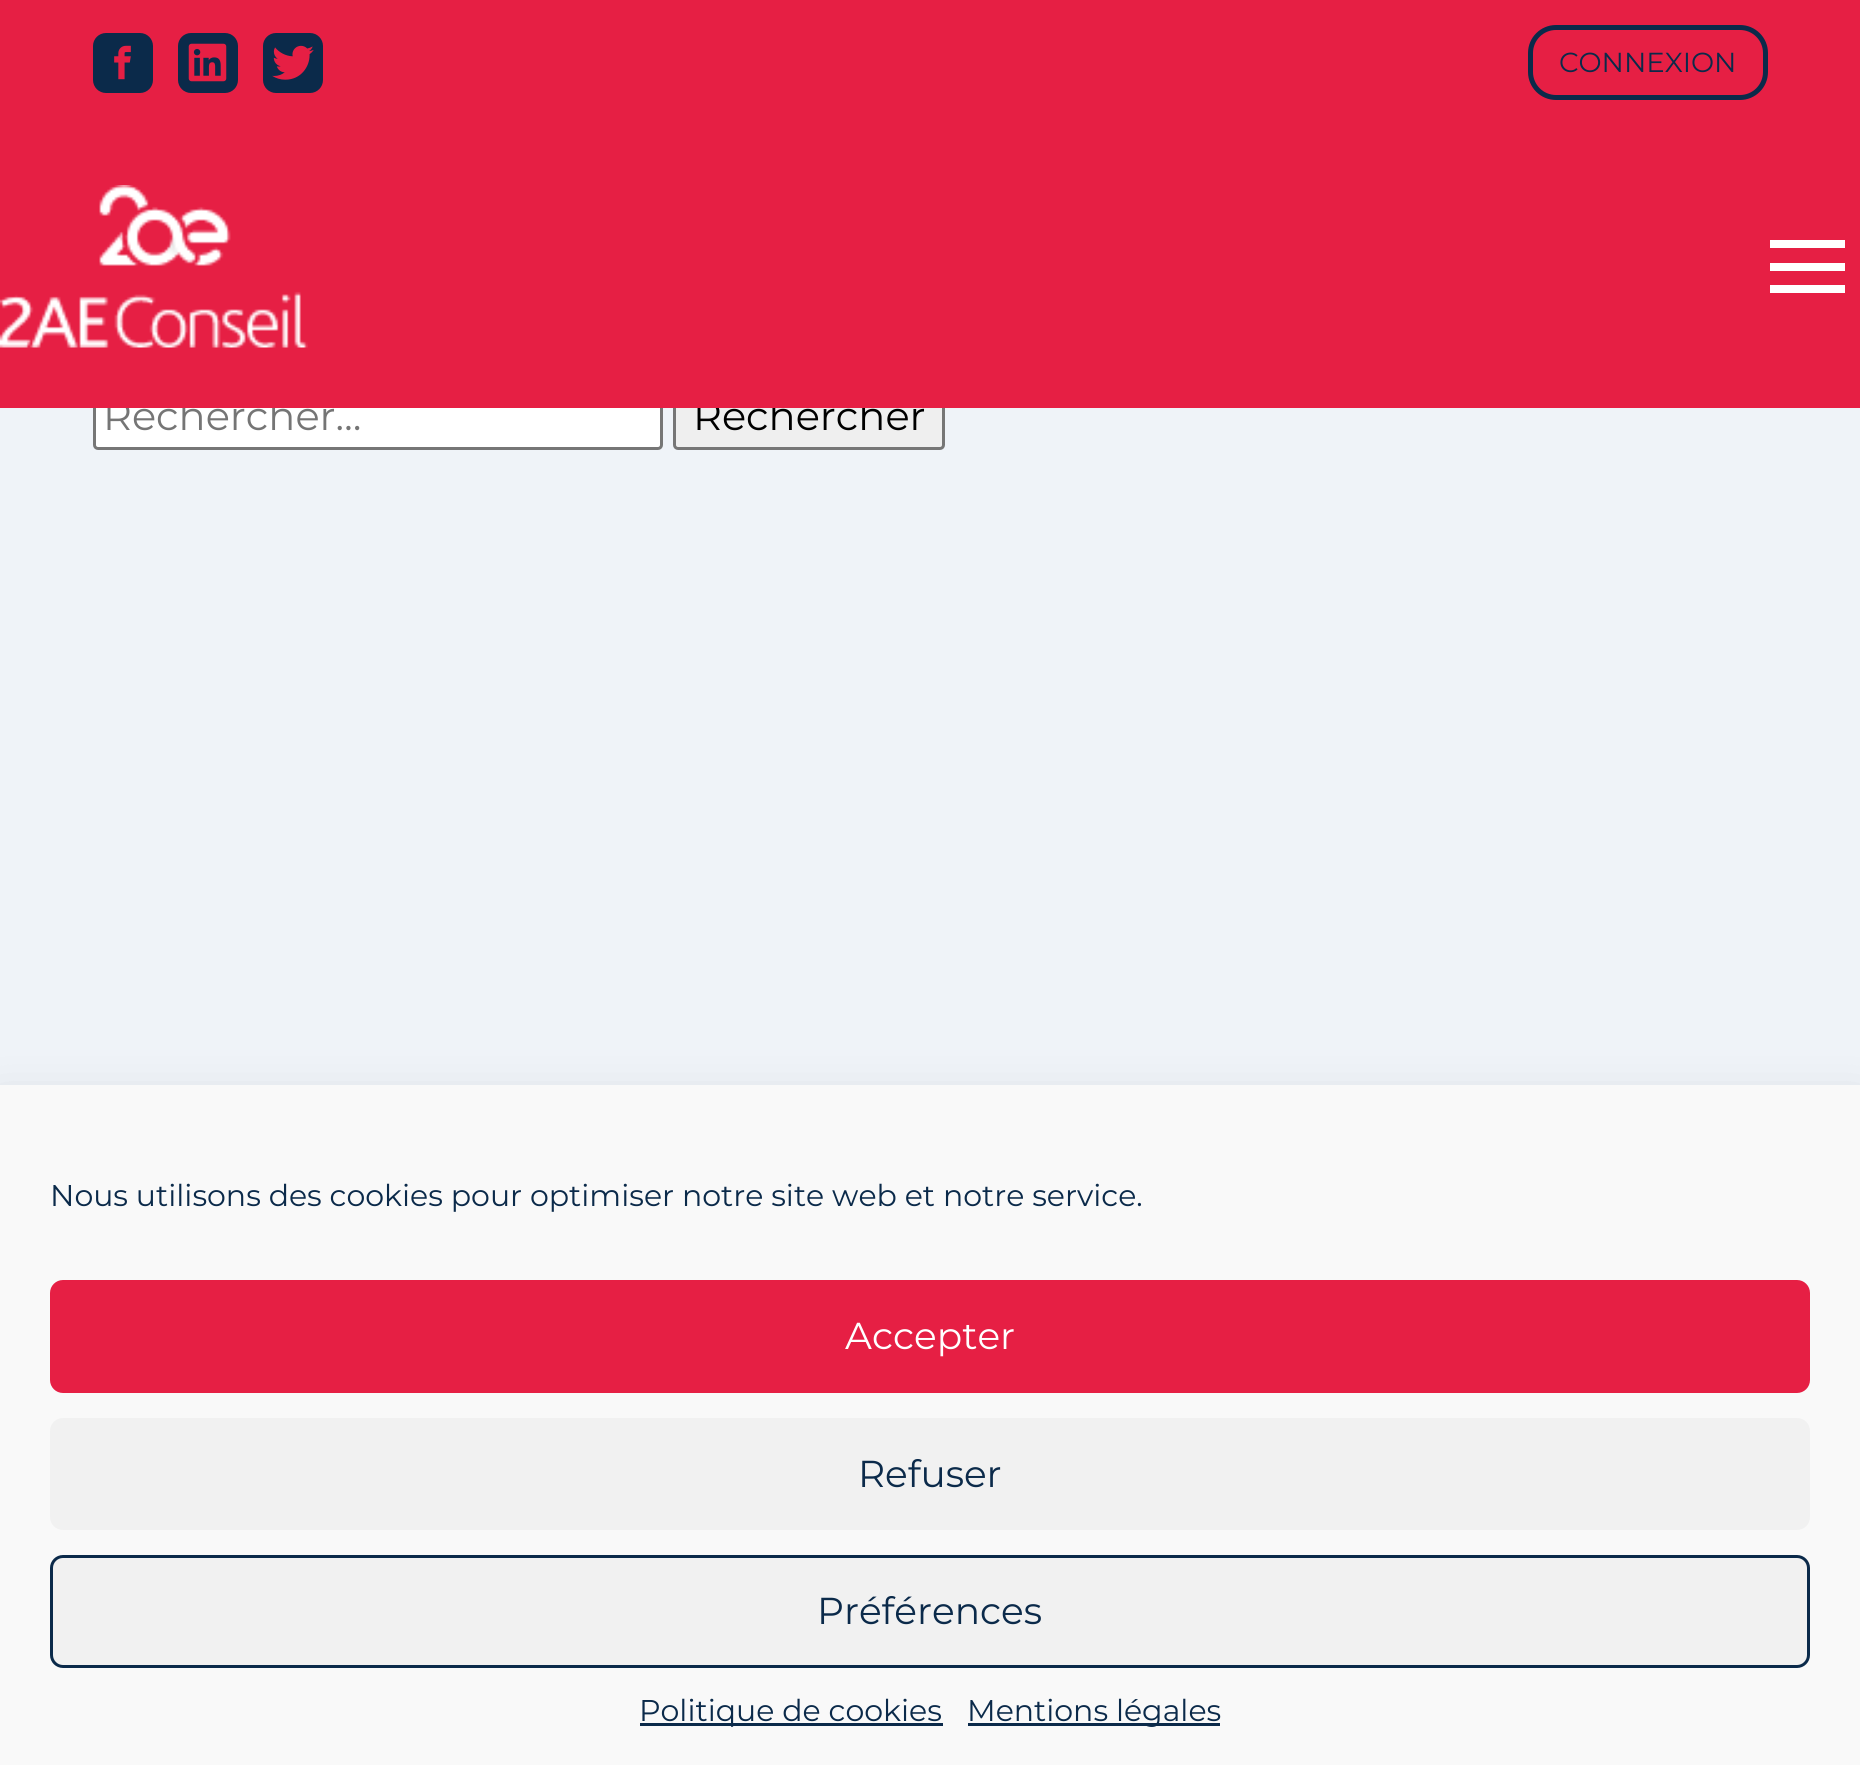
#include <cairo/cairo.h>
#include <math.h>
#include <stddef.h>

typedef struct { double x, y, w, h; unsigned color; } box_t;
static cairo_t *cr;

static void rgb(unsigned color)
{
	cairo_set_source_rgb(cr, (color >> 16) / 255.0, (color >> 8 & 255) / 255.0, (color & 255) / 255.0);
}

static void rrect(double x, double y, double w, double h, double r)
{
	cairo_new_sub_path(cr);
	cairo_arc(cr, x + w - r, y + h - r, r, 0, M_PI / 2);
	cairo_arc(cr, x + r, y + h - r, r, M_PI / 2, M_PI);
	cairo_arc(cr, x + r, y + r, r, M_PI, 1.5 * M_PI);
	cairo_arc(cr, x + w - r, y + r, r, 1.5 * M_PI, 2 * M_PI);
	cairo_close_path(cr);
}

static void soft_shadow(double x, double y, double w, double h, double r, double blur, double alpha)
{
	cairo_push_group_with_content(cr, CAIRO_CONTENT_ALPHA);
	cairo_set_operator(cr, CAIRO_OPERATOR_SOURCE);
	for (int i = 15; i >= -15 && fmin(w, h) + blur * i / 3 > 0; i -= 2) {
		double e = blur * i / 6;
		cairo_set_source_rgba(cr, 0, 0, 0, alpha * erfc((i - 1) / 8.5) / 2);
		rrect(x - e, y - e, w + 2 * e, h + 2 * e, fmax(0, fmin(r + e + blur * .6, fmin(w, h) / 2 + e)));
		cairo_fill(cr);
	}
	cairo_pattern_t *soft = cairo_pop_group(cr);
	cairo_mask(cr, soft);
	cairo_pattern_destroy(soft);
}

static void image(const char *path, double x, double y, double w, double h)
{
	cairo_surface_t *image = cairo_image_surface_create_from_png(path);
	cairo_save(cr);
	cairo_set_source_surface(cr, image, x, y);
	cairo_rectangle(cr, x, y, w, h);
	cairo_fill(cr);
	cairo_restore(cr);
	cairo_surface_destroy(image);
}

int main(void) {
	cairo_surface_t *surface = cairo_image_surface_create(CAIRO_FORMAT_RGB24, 1860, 1765);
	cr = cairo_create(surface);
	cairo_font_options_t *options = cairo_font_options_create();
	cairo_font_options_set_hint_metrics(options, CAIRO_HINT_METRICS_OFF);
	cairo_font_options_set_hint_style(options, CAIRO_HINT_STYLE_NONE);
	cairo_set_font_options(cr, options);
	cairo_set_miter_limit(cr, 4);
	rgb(0xeff3f8);
	cairo_paint(cr);
	rgb(0xe61f44);
	cairo_rectangle(cr, 0, 0, 1860, 125);
	cairo_fill(cr);
	rgb(0x0b2a4a);
	rrect(93, 33, 60, 60, 13);
	cairo_fill(cr);
	image("img/1.png", 114, 45, 17, 35);
	rrect(178, 33, 60, 60, 13);
	cairo_fill(cr);
	image("img/2.png", 188, 43, 39, 39);
	rrect(263, 33, 60, 60, 13);
	cairo_fill(cr);
	image("img/3.png", 272, 45, 42, 35);
	rrect(1530.5, 27.5, 235, 70, 25.5);
	cairo_set_line_width(cr, 5);
	cairo_stroke(cr);
	rgb(0xffffff);
	rrect(94.5, 389.5, 567, 59, 3.5);
	cairo_fill_preserve(cr);
	rgb(0x767676);
	cairo_set_line_width(cr, 3);
	cairo_stroke(cr);
	rgb(0xefefef);
	rrect(674.5, 389.5, 269, 59, 3.5);
	cairo_fill_preserve(cr);
	rgb(0x767676);
	cairo_stroke(cr);
	rgb(0x000000);
	soft_shadow(0, 1110, 1860, 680, 0, 25, 0.19);
	rgb(0xf9f9f9);
	cairo_rectangle(cr, 0, 1085, 1860, 680);
	cairo_fill(cr);
	rgb(0xe61f44);
	rrect(51.5, 1281.5, 1757, 110, 11.5);
	cairo_fill_preserve(cr);
	cairo_stroke(cr);
	rgb(0xf1f1f1);
	rrect(50, 1418, 1760, 112, 13);
	cairo_fill(cr);
	rrect(51.5, 1556.5, 1757, 110, 11.5);
	cairo_fill_preserve(cr);
	rgb(0x0b2a4a);
	cairo_stroke(cr);
	cairo_rectangle(cr, 640, 1723, 303, 3);
	cairo_fill(cr);
	cairo_rectangle(cr, 968, 1723, 252, 3);
	cairo_fill(cr);
	cairo_select_font_face(cr, "Montserrat", CAIRO_FONT_SLANT_NORMAL, CAIRO_FONT_WEIGHT_NORMAL);
	cairo_set_font_size(cr, 27.5);
	cairo_move_to(cr, 1559, 72);
	cairo_show_text(cr, "CONNEXION");
	cairo_set_font_size(cr, 40);
	rgb(0x757575);
	cairo_move_to(cr, 103, 430);
	cairo_show_text(cr, "Rechercher…");
	rgb(0x000000);
	cairo_move_to(cr, 693, 430);
	cairo_show_text(cr, "Rechercher");
	{
		static const box_t items[] = {
			{0, 125, 1860, 283, 0xe61f44},
			{1770, 285, 75, 8, 0xffffff},
			{1770, 240, 75, 8, 0xffffff},
			{1770, 263, 75, 8, 0xffffff},
		};
		for (size_t i = 0; i < sizeof items / sizeof *items; i++) {
			rgb(items[i].color);
			cairo_rectangle(cr, items[i].x, items[i].y, items[i].w, items[i].h);
			cairo_fill(cr);
		}
	}
	image("img/4.png", 0, 185, 308, 163);
	cairo_set_font_size(cr, 30);
	rgb(0x0b2a4a);
	cairo_move_to(cr, 50, 1206);
	cairo_show_text(cr, "Nous utilisons des cookies pour optimiser notre site web et notre service.");
	cairo_set_font_size(cr, 37.5);
	rgb(0xffffff);
	cairo_move_to(cr, 845, 1349);
	cairo_show_text(cr, "Accepter");
	rgb(0x0b2a4a);
	cairo_move_to(cr, 858, 1487);
	cairo_show_text(cr, "Refuser");
	cairo_move_to(cr, 817, 1624);
	cairo_show_text(cr, "Préférences");
	cairo_set_font_size(cr, 30);
	cairo_move_to(cr, 639, 1721);
	cairo_show_text(cr, "Politique de cookies");
	cairo_move_to(cr, 967, 1721);
	cairo_show_text(cr, "Mentions légales");
	cairo_surface_write_to_png(surface, "page.png");
	cairo_font_options_destroy(options);
	cairo_destroy(cr);
	cairo_surface_destroy(surface);
	return 0;
}
